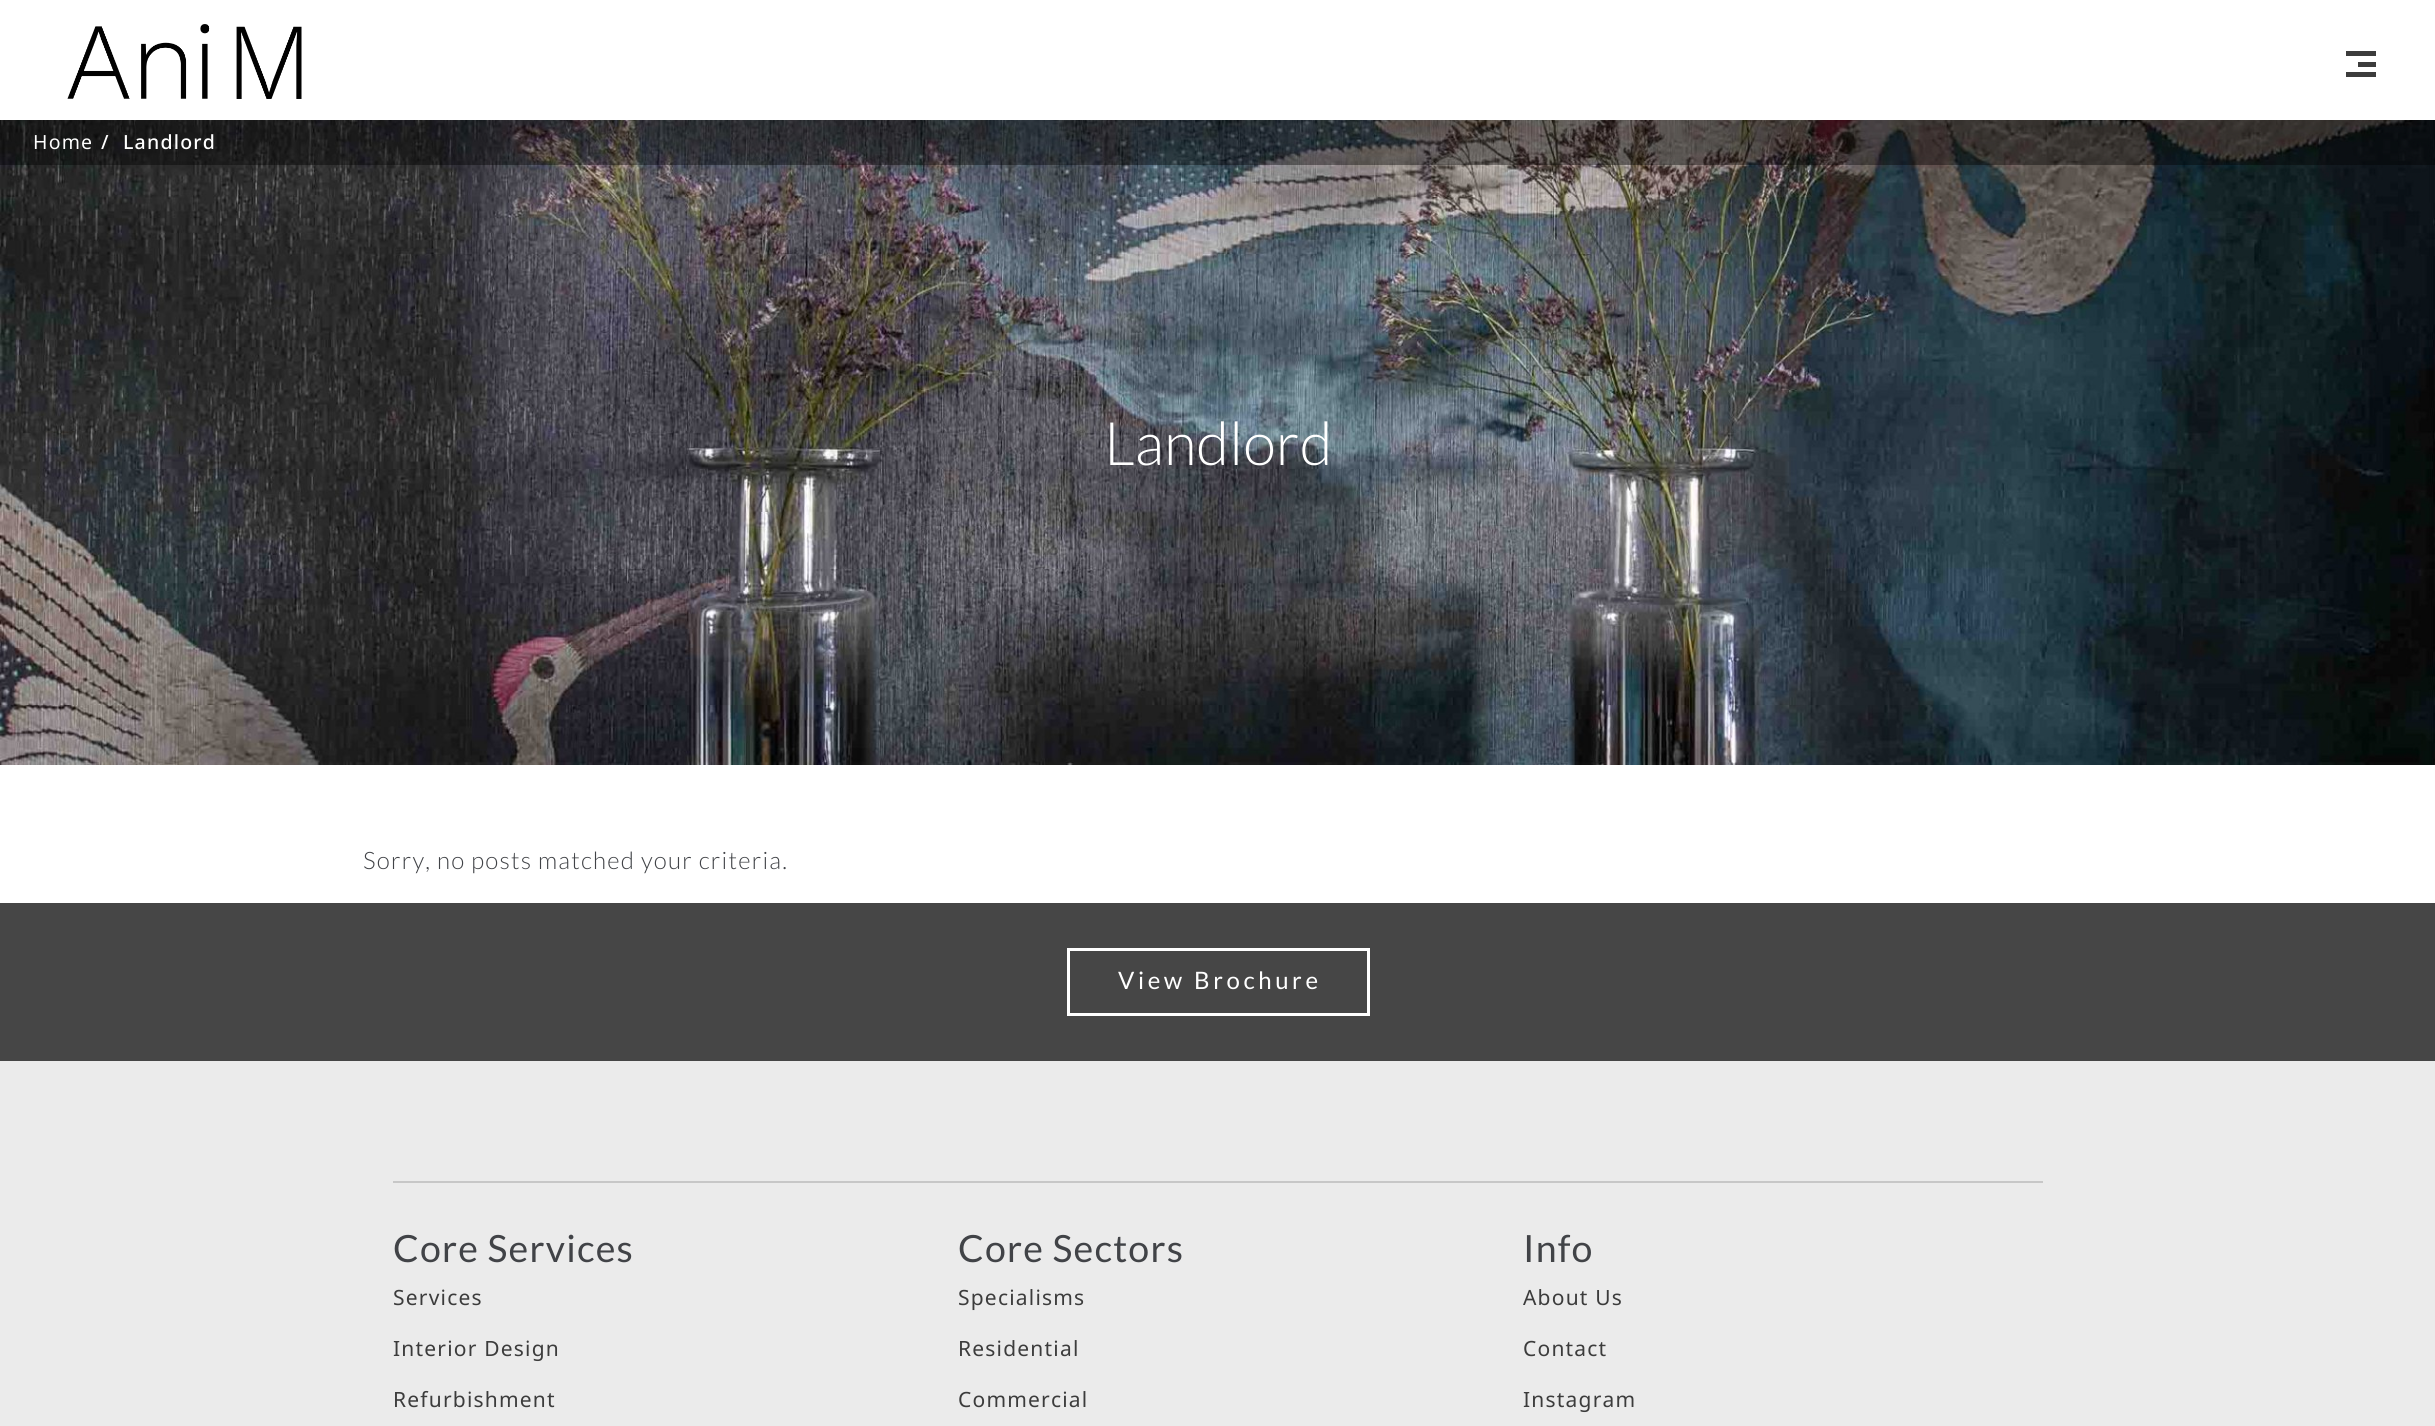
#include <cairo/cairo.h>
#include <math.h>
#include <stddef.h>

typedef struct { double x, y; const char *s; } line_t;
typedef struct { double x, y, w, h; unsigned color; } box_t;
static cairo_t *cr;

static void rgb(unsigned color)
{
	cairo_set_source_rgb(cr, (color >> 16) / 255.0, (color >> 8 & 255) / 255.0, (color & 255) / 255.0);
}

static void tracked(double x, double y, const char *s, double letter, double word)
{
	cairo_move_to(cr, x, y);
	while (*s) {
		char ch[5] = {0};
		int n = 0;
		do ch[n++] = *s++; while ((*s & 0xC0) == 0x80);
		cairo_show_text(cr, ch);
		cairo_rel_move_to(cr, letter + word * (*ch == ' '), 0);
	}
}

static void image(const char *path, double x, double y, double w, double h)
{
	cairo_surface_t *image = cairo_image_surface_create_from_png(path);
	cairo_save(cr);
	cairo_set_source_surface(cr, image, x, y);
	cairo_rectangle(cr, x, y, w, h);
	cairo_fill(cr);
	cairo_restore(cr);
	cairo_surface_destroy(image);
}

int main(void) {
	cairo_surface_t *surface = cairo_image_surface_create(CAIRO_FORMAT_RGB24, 2435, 1426);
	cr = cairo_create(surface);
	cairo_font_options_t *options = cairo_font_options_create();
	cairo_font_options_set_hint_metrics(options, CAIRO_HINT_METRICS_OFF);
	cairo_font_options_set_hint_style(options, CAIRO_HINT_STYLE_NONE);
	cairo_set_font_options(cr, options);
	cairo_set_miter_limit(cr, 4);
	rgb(0xffffff);
	cairo_paint(cr);
	image("img/1.png", 67, 24, 235, 75);
	{
		static const box_t items[] = {
			{2346, 51, 30, 5, 0x3c3c3c},
			{2358, 62, 18, 5, 0x3c3c3c},
			{2346, 72, 30, 5, 0x3c3c3c},
		};
		for (size_t i = 0; i < sizeof items / sizeof *items; i++) {
			rgb(items[i].color);
			cairo_rectangle(cr, items[i].x, items[i].y, items[i].w, items[i].h);
			cairo_fill(cr);
		}
	}
	image("img/2.png", 0, 120, 2435, 645);
	cairo_set_source_rgba(cr, 0, 0, 0, 0.4);
	cairo_rectangle(cr, 0, 120, 2435, 45);
	cairo_fill(cr);
	rgb(0x464646);
	cairo_rectangle(cr, 0, 903, 2435, 158);
	cairo_fill(cr);
	cairo_rectangle(cr, 1068.5, 949.5, 300, 65);
	rgb(0xffffff);
	cairo_set_line_width(cr, 3);
	cairo_stroke(cr);
	rgb(0xebebeb);
	cairo_rectangle(cr, 0, 1061, 2435, 365);
	cairo_fill(cr);
	rgb(0xc7c7c7);
	cairo_rectangle(cr, 393, 1181, 1650, 2);
	cairo_fill(cr);
	cairo_select_font_face(cr, "Noto Sans", CAIRO_FONT_SLANT_NORMAL, CAIRO_FONT_WEIGHT_NORMAL);
	cairo_set_font_size(cr, 19.5);
	rgb(0xffffff);
	tracked(33, 149, "Home", 1.2, 0);
	cairo_select_font_face(cr, "Noto Sans Medium", CAIRO_FONT_SLANT_NORMAL, CAIRO_FONT_WEIGHT_NORMAL);
	tracked(101, 149, "/", 1.2, 0);
	tracked(123, 149, "Landlord", 1.2, 0);
	cairo_select_font_face(cr, "Lato Light", CAIRO_FONT_SLANT_NORMAL, CAIRO_FONT_WEIGHT_NORMAL);
	cairo_set_font_size(cr, 60);
	cairo_move_to(cr, 1104, 465);
	cairo_show_text(cr, "Landlord");
	cairo_set_font_size(cr, 24);
	rgb(0x414347);
	tracked(363, 869, "Sorry, no posts matched your criteria.", 1.2, 0);
	cairo_select_font_face(cr, "Lato", CAIRO_FONT_SLANT_NORMAL, CAIRO_FONT_WEIGHT_NORMAL);
	rgb(0xffffff);
	tracked(1118, 989, "View Brochure", 3.6, 0);
	cairo_set_font_size(cr, 37.5);
	rgb(0x414347);
	tracked(393, 1262, "Core Services", 1.2, 0);
	cairo_select_font_face(cr, "Noto Sans", CAIRO_FONT_SLANT_NORMAL, CAIRO_FONT_WEIGHT_NORMAL);
	cairo_set_font_size(cr, 21);
	rgb(0x3c3c3c);
	{
		static const line_t items[] = {
			{393, 1305, "Services"},
			{393, 1356, "Interior Design"},
			{393, 1407, "Refurbishment"},
		};
		for (size_t i = 0; i < sizeof items / sizeof *items; i++) {
			tracked(items[i].x, items[i].y, items[i].s, 1.2, 0);
		}
	}
	cairo_select_font_face(cr, "Lato", CAIRO_FONT_SLANT_NORMAL, CAIRO_FONT_WEIGHT_NORMAL);
	cairo_set_font_size(cr, 37.5);
	rgb(0x414347);
	tracked(958, 1262, "Core Sectors", 1.2, 0);
	cairo_select_font_face(cr, "Noto Sans", CAIRO_FONT_SLANT_NORMAL, CAIRO_FONT_WEIGHT_NORMAL);
	cairo_set_font_size(cr, 21);
	rgb(0x3c3c3c);
	{
		static const line_t items[] = {
			{958, 1305, "Specialisms"},
			{958, 1356, "Residential"},
			{958, 1407, "Commercial"},
		};
		for (size_t i = 0; i < sizeof items / sizeof *items; i++) {
			tracked(items[i].x, items[i].y, items[i].s, 1.2, 0);
		}
	}
	cairo_select_font_face(cr, "Lato", CAIRO_FONT_SLANT_NORMAL, CAIRO_FONT_WEIGHT_NORMAL);
	cairo_set_font_size(cr, 37.5);
	rgb(0x414347);
	tracked(1523, 1262, "Info", 1.2, 0);
	cairo_select_font_face(cr, "Noto Sans", CAIRO_FONT_SLANT_NORMAL, CAIRO_FONT_WEIGHT_NORMAL);
	cairo_set_font_size(cr, 21);
	rgb(0x3c3c3c);
	{
		static const line_t items[] = {
			{1523, 1305, "About Us"},
			{1523, 1356, "Contact"},
			{1523, 1407, "Instagram"},
		};
		for (size_t i = 0; i < sizeof items / sizeof *items; i++) {
			tracked(items[i].x, items[i].y, items[i].s, 1.2, 0);
		}
	}
	cairo_surface_write_to_png(surface, "page.png");
	cairo_font_options_destroy(options);
	cairo_destroy(cr);
	cairo_surface_destroy(surface);
	return 0;
}
